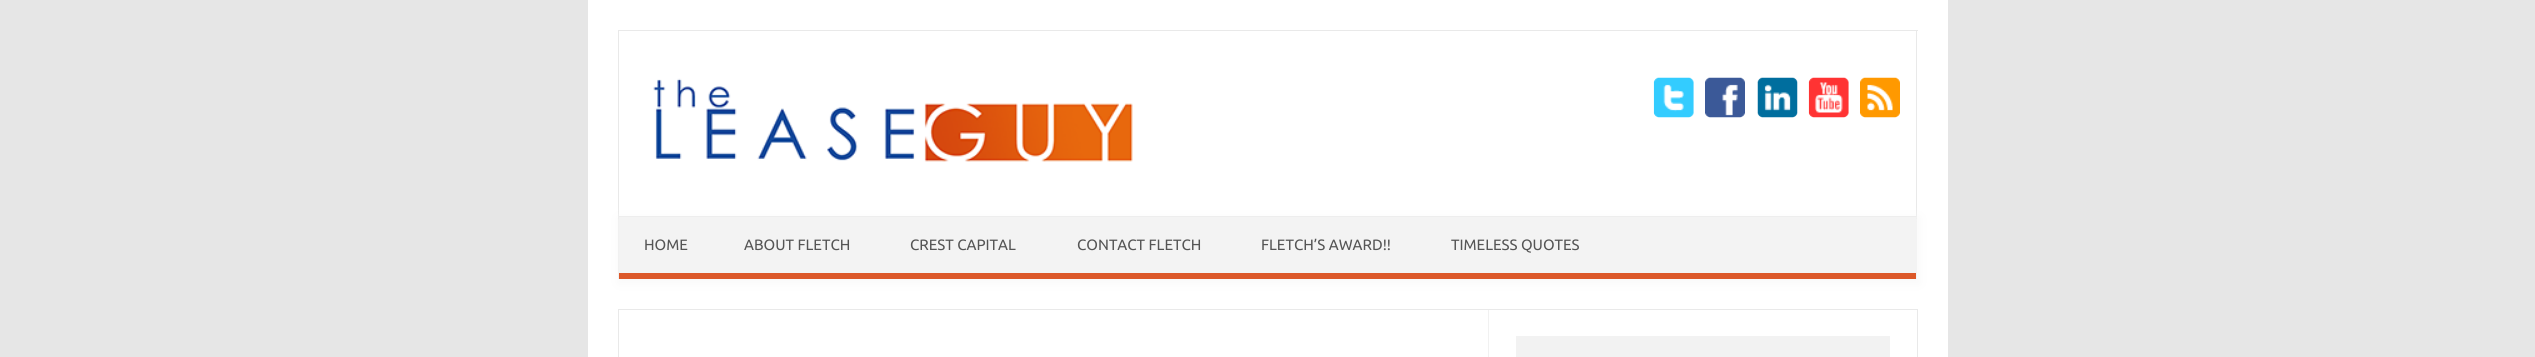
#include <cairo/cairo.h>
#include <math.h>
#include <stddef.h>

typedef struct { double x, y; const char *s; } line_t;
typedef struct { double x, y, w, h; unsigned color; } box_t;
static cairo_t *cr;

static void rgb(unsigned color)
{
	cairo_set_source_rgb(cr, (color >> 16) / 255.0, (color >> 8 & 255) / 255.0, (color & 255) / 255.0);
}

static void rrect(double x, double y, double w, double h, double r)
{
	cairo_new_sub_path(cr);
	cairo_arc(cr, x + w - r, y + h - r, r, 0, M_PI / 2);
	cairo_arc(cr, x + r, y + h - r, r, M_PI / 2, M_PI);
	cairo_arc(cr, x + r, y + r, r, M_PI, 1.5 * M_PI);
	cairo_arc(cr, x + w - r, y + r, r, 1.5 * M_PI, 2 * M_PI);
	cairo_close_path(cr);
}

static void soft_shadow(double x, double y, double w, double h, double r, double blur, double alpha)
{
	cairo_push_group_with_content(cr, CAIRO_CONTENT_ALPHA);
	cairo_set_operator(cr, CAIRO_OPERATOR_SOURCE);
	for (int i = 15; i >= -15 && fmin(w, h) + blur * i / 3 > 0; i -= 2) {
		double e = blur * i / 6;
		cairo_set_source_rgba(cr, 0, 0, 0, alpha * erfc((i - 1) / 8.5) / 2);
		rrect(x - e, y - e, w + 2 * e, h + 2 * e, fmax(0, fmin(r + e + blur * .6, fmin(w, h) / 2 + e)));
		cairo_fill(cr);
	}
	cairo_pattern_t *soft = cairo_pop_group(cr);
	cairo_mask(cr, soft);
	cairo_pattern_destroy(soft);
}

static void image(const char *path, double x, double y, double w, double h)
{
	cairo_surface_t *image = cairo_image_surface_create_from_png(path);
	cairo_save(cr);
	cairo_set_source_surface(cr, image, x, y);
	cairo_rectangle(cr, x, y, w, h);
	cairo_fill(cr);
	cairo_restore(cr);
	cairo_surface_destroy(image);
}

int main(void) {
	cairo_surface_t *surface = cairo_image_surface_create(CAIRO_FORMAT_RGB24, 2535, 357);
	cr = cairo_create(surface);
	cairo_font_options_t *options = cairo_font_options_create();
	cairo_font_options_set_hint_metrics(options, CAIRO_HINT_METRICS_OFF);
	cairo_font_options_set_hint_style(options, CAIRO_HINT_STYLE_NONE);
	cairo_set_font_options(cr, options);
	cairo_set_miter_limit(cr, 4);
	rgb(0xe6e6e6);
	cairo_paint(cr);
	{
		static const box_t items[] = {
			{588, 0, 1360, 357, 0xffffff},
			{618, 30, 1300, 1, 0xe9e9e9},
			{1916, 30, 1, 249, 0xe9e9e9},
			{618, 30, 1, 249, 0xe9e9e9},
		};
		for (size_t i = 0; i < sizeof items / sizeof *items; i++) {
			rgb(items[i].color);
			cairo_rectangle(cr, items[i].x, items[i].y, items[i].w, items[i].h);
			cairo_fill(cr);
		}
	}
	image("img/1.png", 653, 78, 480, 84);
	image("img/2.png", 1653, 77, 41, 41);
	image("img/3.png", 1705, 77, 40, 41);
	image("img/4.png", 1757, 77, 41, 41);
	image("img/5.png", 1808, 77, 41, 41);
	image("img/6.png", 1860, 77, 40, 41);
	rgb(0xf8f8f8);
	soft_shadow(619, 218, 1300, 65, 0, 5.5, 1);
	{
		static const box_t items[] = {
			{619, 217, 1297, 56, 0xf3f3f3},
			{619, 216, 1297, 1, 0xededed},
			{619, 273, 1297, 6, 0xdc5829},
		};
		for (size_t i = 0; i < sizeof items / sizeof *items; i++) {
			rgb(items[i].color);
			cairo_rectangle(cr, items[i].x, items[i].y, items[i].w, items[i].h);
			cairo_fill(cr);
		}
	}
	cairo_rectangle(cr, 618.5, 309.5, 1299, 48);
	rgb(0xe9e9e9);
	cairo_set_line_width(cr, 1);
	cairo_stroke(cr);
	rgb(0xf1f1f1);
	cairo_rectangle(cr, 1488, 310, 1, 47);
	cairo_fill(cr);
	rgb(0xf2f2f2);
	cairo_rectangle(cr, 1516, 336, 374, 21);
	cairo_fill(cr);
	cairo_select_font_face(cr, "Ubuntu", CAIRO_FONT_SLANT_NORMAL, CAIRO_FONT_WEIGHT_NORMAL);
	cairo_set_font_size(cr, 15);
	rgb(0x555555);
	{
		static const line_t items[] = {
			{644, 250, "HOME"},
			{744, 250, "ABOUT FLETCH"},
			{910, 250, "CREST CAPITAL"},
			{1077, 250, "CONTACT FLETCH"},
			{1261, 250, "FLETCH’S AWARD!!"},
			{1451, 250, "TIMELESS QUOTES"},
		};
		for (size_t i = 0; i < sizeof items / sizeof *items; i++) {
			cairo_move_to(cr, items[i].x, items[i].y);
			cairo_show_text(cr, items[i].s);
		}
	}
	cairo_surface_write_to_png(surface, "page.png");
	cairo_font_options_destroy(options);
	cairo_destroy(cr);
	cairo_surface_destroy(surface);
	return 0;
}
